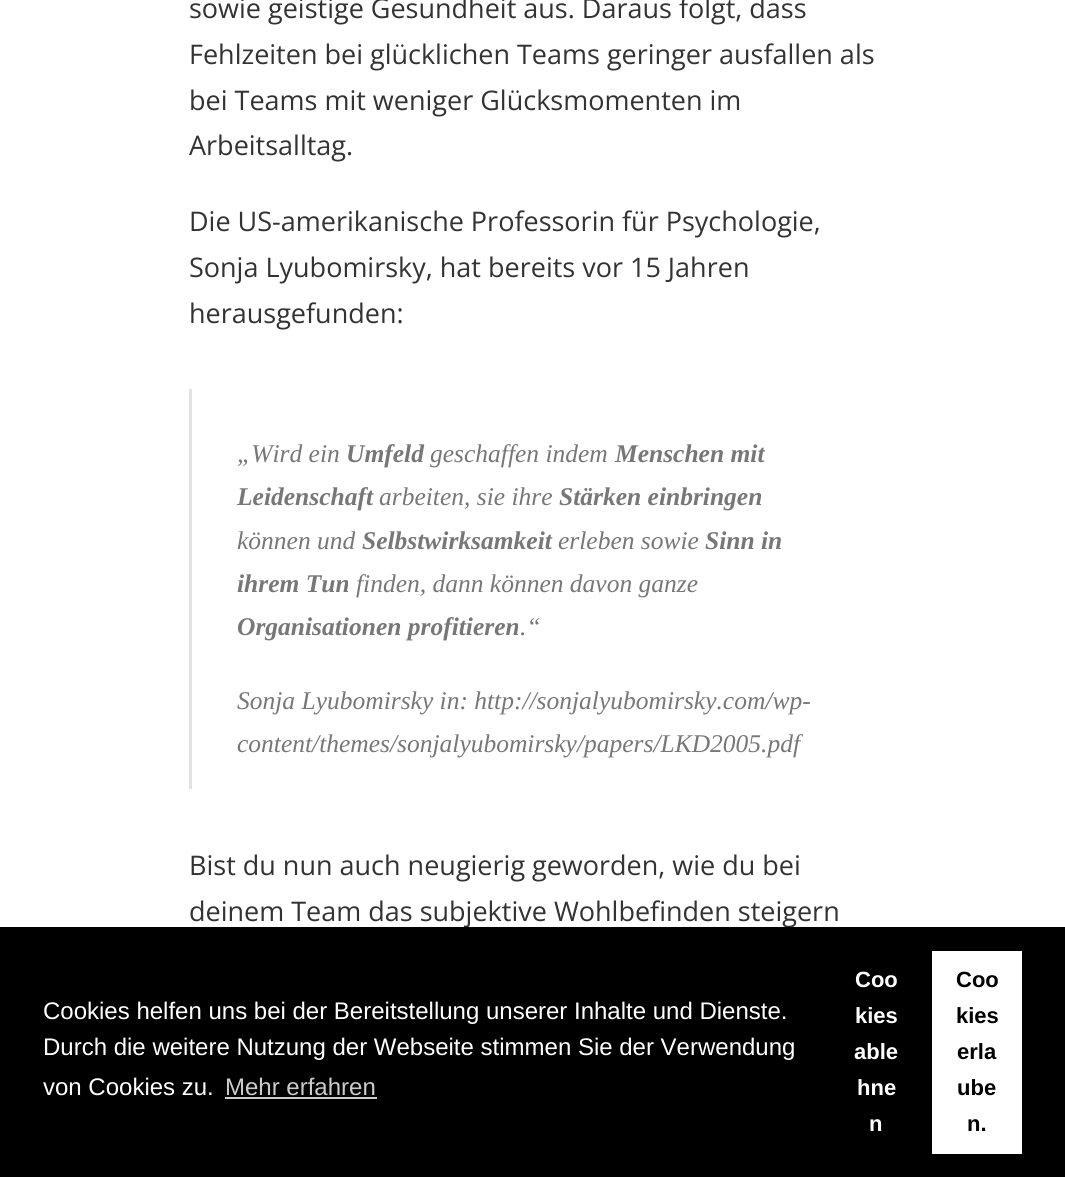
#include <cairo/cairo.h>
#include <math.h>
#include <stddef.h>

typedef struct { double x, y; const char *s; } line_t;
static cairo_t *cr;

static void rgb(unsigned color)
{
	cairo_set_source_rgb(cr, (color >> 16) / 255.0, (color >> 8 & 255) / 255.0, (color & 255) / 255.0);
}

int main(void) {
	cairo_surface_t *surface = cairo_image_surface_create(CAIRO_FORMAT_RGB24, 1065, 1177);
	cr = cairo_create(surface);
	cairo_font_options_t *options = cairo_font_options_create();
	cairo_font_options_set_hint_metrics(options, CAIRO_HINT_METRICS_OFF);
	cairo_font_options_set_hint_style(options, CAIRO_HINT_STYLE_NONE);
	cairo_set_font_options(cr, options);
	cairo_set_miter_limit(cr, 4);
	rgb(0xffffff);
	cairo_paint(cr);
	rgb(0xe2e2e2);
	cairo_rectangle(cr, 189, 389, 3, 400);
	cairo_fill(cr);
	cairo_select_font_face(cr, "Open Sans", CAIRO_FONT_SLANT_NORMAL, CAIRO_FONT_WEIGHT_NORMAL);
	cairo_set_font_size(cr, 27);
	rgb(0x333333);
	{
		static const line_t items[] = {
			{189, 18, "sowie geistige Gesundheit aus. Daraus folgt, dass"},
			{189, 64, "Fehlzeiten bei glücklichen Teams geringer ausfallen als"},
			{189, 110, "bei Teams mit weniger Glücksmomenten im"},
			{189, 155, "Arbeitsalltag."},
			{189, 231, "Die US-amerikanische Professorin für Psychologie,"},
			{189, 277, "Sonja Lyubomirsky, hat bereits vor 15 Jahren"},
			{189, 323, "herausgefunden:"},
		};
		for (size_t i = 0; i < sizeof items / sizeof *items; i++) {
			cairo_move_to(cr, items[i].x, items[i].y);
			cairo_show_text(cr, items[i].s);
		}
	}
	cairo_select_font_face(cr, "Liberation Serif", CAIRO_FONT_SLANT_ITALIC, CAIRO_FONT_WEIGHT_NORMAL);
	cairo_set_font_size(cr, 25.5);
	rgb(0x777777);
	cairo_move_to(cr, 237, 462);
	cairo_show_text(cr, "„Wird ein");
	cairo_select_font_face(cr, "Liberation Serif", CAIRO_FONT_SLANT_ITALIC, CAIRO_FONT_WEIGHT_BOLD);
	cairo_move_to(cr, 346, 462);
	cairo_show_text(cr, "Umfeld");
	cairo_select_font_face(cr, "Liberation Serif", CAIRO_FONT_SLANT_ITALIC, CAIRO_FONT_WEIGHT_NORMAL);
	cairo_move_to(cr, 430, 462);
	cairo_show_text(cr, "geschaffen indem");
	cairo_select_font_face(cr, "Liberation Serif", CAIRO_FONT_SLANT_ITALIC, CAIRO_FONT_WEIGHT_BOLD);
	cairo_move_to(cr, 615, 462);
	cairo_show_text(cr, "Menschen mit");
	cairo_move_to(cr, 237, 505);
	cairo_show_text(cr, "Leidenschaft");
	cairo_select_font_face(cr, "Liberation Serif", CAIRO_FONT_SLANT_ITALIC, CAIRO_FONT_WEIGHT_NORMAL);
	cairo_move_to(cr, 379, 505);
	cairo_show_text(cr, "arbeiten, sie ihre");
	cairo_select_font_face(cr, "Liberation Serif", CAIRO_FONT_SLANT_ITALIC, CAIRO_FONT_WEIGHT_BOLD);
	cairo_move_to(cr, 559, 505);
	cairo_show_text(cr, "Stärken einbringen");
	cairo_select_font_face(cr, "Liberation Serif", CAIRO_FONT_SLANT_ITALIC, CAIRO_FONT_WEIGHT_NORMAL);
	cairo_move_to(cr, 237, 549);
	cairo_show_text(cr, "können und");
	cairo_select_font_face(cr, "Liberation Serif", CAIRO_FONT_SLANT_ITALIC, CAIRO_FONT_WEIGHT_BOLD);
	cairo_move_to(cr, 362, 549);
	cairo_show_text(cr, "Selbstwirksamkeit");
	cairo_select_font_face(cr, "Liberation Serif", CAIRO_FONT_SLANT_ITALIC, CAIRO_FONT_WEIGHT_NORMAL);
	cairo_move_to(cr, 558, 549);
	cairo_show_text(cr, "erleben sowie");
	cairo_select_font_face(cr, "Liberation Serif", CAIRO_FONT_SLANT_ITALIC, CAIRO_FONT_WEIGHT_BOLD);
	cairo_move_to(cr, 705, 549);
	cairo_show_text(cr, "Sinn in");
	cairo_move_to(cr, 237, 592);
	cairo_show_text(cr, "ihrem Tun");
	cairo_select_font_face(cr, "Liberation Serif", CAIRO_FONT_SLANT_ITALIC, CAIRO_FONT_WEIGHT_NORMAL);
	cairo_move_to(cr, 356, 592);
	cairo_show_text(cr, "finden, dann können davon ganze");
	cairo_select_font_face(cr, "Liberation Serif", CAIRO_FONT_SLANT_ITALIC, CAIRO_FONT_WEIGHT_BOLD);
	cairo_move_to(cr, 237, 635);
	cairo_show_text(cr, "Organisationen profitieren");
	cairo_select_font_face(cr, "Liberation Serif", CAIRO_FONT_SLANT_ITALIC, CAIRO_FONT_WEIGHT_NORMAL);
	{
		static const line_t items[] = {
			{520, 635, ".“"},
			{237, 709, "Sonja Lyubomirsky in: http://sonjalyubomirsky.com/wp-"},
			{237, 752, "content/themes/sonjalyubomirsky/papers/LKD2005.pdf"},
		};
		for (size_t i = 0; i < sizeof items / sizeof *items; i++) {
			cairo_move_to(cr, items[i].x, items[i].y);
			cairo_show_text(cr, items[i].s);
		}
	}
	cairo_select_font_face(cr, "Open Sans", CAIRO_FONT_SLANT_NORMAL, CAIRO_FONT_WEIGHT_NORMAL);
	cairo_set_font_size(cr, 27);
	rgb(0x333333);
	cairo_move_to(cr, 189, 875);
	cairo_show_text(cr, "Bist du nun auch neugierig geworden, wie du bei");
	cairo_move_to(cr, 189, 921);
	cairo_show_text(cr, "deinem Team das subjektive Wohlbefinden steigern");
	rgb(0x000000);
	cairo_rectangle(cr, 0, 927, 1065, 250);
	cairo_fill(cr);
	cairo_select_font_face(cr, "Liberation Sans", CAIRO_FONT_SLANT_NORMAL, CAIRO_FONT_WEIGHT_NORMAL);
	cairo_set_font_size(cr, 24);
	rgb(0xffffff);
	{
		static const line_t items[] = {
			{43, 1019, "Cookies helfen uns bei der Bereitstellung unserer Inhalte und Dienste."},
			{43, 1055, "Durch die weitere Nutzung der Webseite stimmen Sie der Verwendung"},
			{43, 1095, "von Cookies zu."},
		};
		for (size_t i = 0; i < sizeof items / sizeof *items; i++) {
			cairo_move_to(cr, items[i].x, items[i].y);
			cairo_show_text(cr, items[i].s);
		}
	}
	rgb(0xcccccc);
	cairo_move_to(cr, 225, 1095);
	cairo_show_text(cr, "Mehr erfahren");
	cairo_rectangle(cr, 225, 1097, 152, 2);
	cairo_fill(cr);
	cairo_select_font_face(cr, "Liberation Sans", CAIRO_FONT_SLANT_NORMAL, CAIRO_FONT_WEIGHT_BOLD);
	cairo_set_font_size(cr, 22);
	rgb(0xffffff);
	{
		static const line_t items[] = {
			{855, 987, "Coo"},
			{855, 1023, "kies"},
			{854, 1059, "able"},
			{857, 1095, "hne"},
			{869, 1131, "n"},
		};
		for (size_t i = 0; i < sizeof items / sizeof *items; i++) {
			cairo_move_to(cr, items[i].x, items[i].y);
			cairo_show_text(cr, items[i].s);
		}
	}
	cairo_rectangle(cr, 932, 951, 90, 203);
	cairo_fill(cr);
	rgb(0x000000);
	{
		static const line_t items[] = {
			{956, 987, "Coo"},
			{956, 1023, "kies"},
			{957, 1059, "erla"},
			{957, 1095, "ube"},
			{967, 1131, "n."},
		};
		for (size_t i = 0; i < sizeof items / sizeof *items; i++) {
			cairo_move_to(cr, items[i].x, items[i].y);
			cairo_show_text(cr, items[i].s);
		}
	}
	cairo_surface_write_to_png(surface, "page.png");
	cairo_font_options_destroy(options);
	cairo_destroy(cr);
	cairo_surface_destroy(surface);
	return 0;
}
